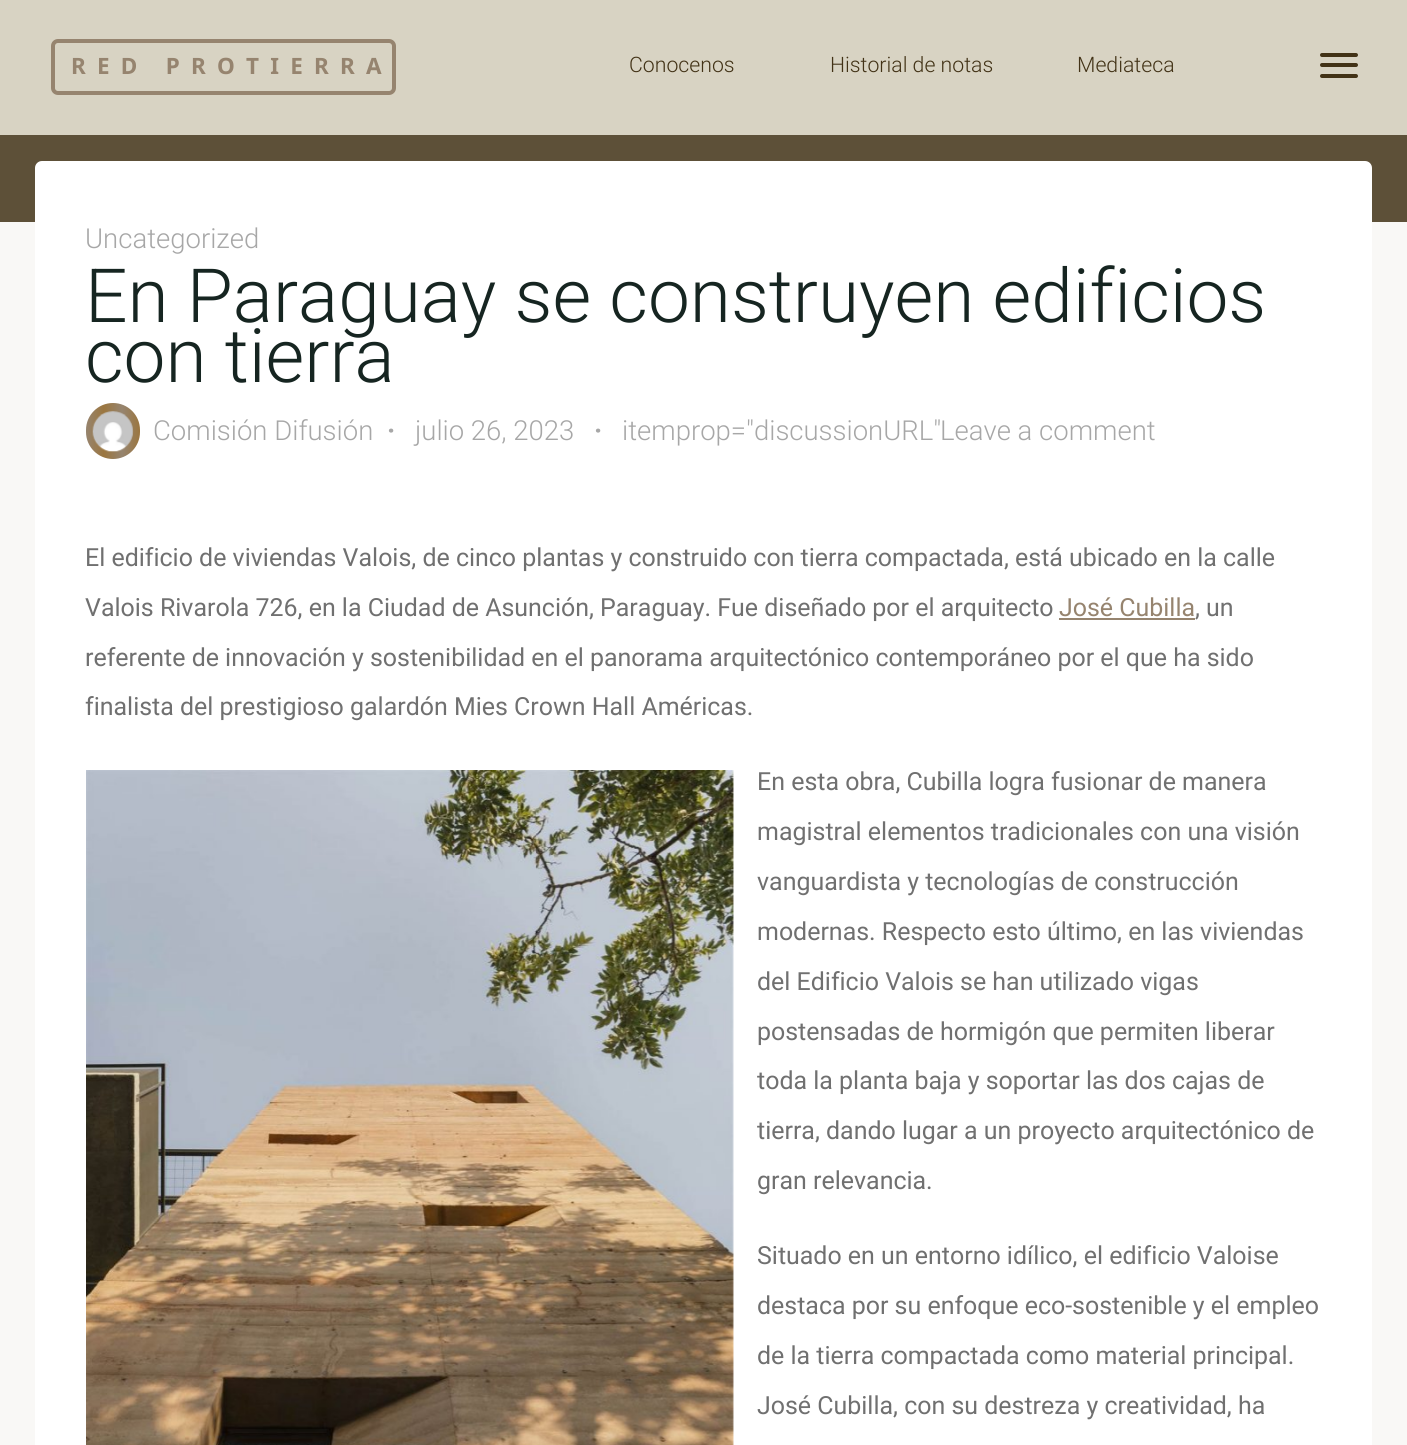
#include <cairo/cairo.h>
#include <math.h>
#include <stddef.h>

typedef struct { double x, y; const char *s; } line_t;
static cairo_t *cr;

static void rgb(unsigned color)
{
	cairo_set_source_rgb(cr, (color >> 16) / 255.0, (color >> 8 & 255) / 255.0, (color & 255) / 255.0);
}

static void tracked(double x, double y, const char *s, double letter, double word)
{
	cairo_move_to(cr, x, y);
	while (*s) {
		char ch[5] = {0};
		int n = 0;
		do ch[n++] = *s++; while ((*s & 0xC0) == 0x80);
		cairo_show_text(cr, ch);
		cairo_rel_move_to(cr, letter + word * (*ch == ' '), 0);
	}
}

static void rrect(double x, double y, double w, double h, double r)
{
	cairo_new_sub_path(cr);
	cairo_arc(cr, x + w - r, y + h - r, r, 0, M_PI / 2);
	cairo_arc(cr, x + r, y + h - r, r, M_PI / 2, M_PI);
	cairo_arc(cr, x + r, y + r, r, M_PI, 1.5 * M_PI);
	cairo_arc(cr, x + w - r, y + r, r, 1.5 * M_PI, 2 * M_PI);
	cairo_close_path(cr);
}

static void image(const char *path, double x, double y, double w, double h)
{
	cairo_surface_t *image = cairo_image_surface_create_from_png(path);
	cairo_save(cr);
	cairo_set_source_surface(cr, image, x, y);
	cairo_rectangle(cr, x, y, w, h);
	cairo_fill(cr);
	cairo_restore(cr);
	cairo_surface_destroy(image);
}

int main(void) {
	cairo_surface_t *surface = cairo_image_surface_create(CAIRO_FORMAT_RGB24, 1407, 1445);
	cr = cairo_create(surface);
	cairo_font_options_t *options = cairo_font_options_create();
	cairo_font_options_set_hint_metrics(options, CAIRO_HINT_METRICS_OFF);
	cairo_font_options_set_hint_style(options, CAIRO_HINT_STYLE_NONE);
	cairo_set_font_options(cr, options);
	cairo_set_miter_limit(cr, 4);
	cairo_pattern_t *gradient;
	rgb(0xf9f8f6);
	cairo_paint(cr);
	rgb(0xd8d3c3);
	cairo_rectangle(cr, 0, 0, 1407, 135);
	cairo_fill(cr);
	rrect(53, 41, 341, 52, 5);
	rgb(0x96846f);
	cairo_set_line_width(cr, 4);
	cairo_stroke(cr);
	rgb(0x423216);
	rrect(1320, 63, 38, 4, 2);
	cairo_fill(cr);
	rrect(1320, 53, 38, 4, 2);
	cairo_fill(cr);
	rrect(1320, 74, 38, 4, 2);
	cairo_fill(cr);
	rgb(0x5d5038);
	cairo_rectangle(cr, 0, 135, 1407, 87);
	cairo_fill(cr);
	rgb(0xffffff);
	rrect(35, 161, 1337, 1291, 7);
	cairo_fill(cr);
	gradient = cairo_pattern_create_linear(86, 431, 140, 431);
	cairo_pattern_add_color_stop_rgba(gradient, 0, 0.588, 0.518, 0.435, 1);
	cairo_pattern_add_color_stop_rgba(gradient, 0.33, 0.608, 0.463, 0.247, 1);
	cairo_pattern_add_color_stop_rgba(gradient, 0.67, 0.588, 0.518, 0.435, 1);
	cairo_pattern_add_color_stop_rgba(gradient, 1, 0.608, 0.463, 0.247, 1);
	cairo_set_source(cr, gradient);
	cairo_pattern_destroy(gradient);
	rrect(86, 403, 54, 56, 27);
	cairo_fill(cr);
	image("img/1.png", 92, 411, 42, 41);
	rgb(0x96846f);
	cairo_rectangle(cr, 1059, 618, 136, 2);
	cairo_fill(cr);
	image("img/2.png", 86, 770, 648, 675);
	cairo_select_font_face(cr, "Noto Sans", CAIRO_FONT_SLANT_NORMAL, CAIRO_FONT_WEIGHT_BOLD);
	cairo_set_font_size(cr, 22.5);
	tracked(71, 74, "RED PROTIERRA", 11.25, 0);
	cairo_select_font_face(cr, "Roboto Light", CAIRO_FONT_SLANT_NORMAL, CAIRO_FONT_WEIGHT_NORMAL);
	cairo_set_font_size(cr, 21.25);
	rgb(0x423216);
	{
		static const line_t items[] = {
			{629, 72, "Conocenos"},
			{830, 72, "Historial de notas"},
			{1077, 72, "Mediateca"},
		};
		for (size_t i = 0; i < sizeof items / sizeof *items; i++) {
			cairo_move_to(cr, items[i].x, items[i].y);
			cairo_show_text(cr, items[i].s);
		}
	}
	cairo_set_font_size(cr, 27.5);
	rgb(0xa7a7a7);
	cairo_move_to(cr, 85, 248);
	cairo_show_text(cr, "Uncategorized");
	cairo_set_font_size(cr, 74.75);
	rgb(0x162521);
	cairo_move_to(cr, 85, 322);
	cairo_show_text(cr, "En Paraguay se construyen edificios");
	cairo_move_to(cr, 85, 382);
	cairo_show_text(cr, "con tierra");
	cairo_set_font_size(cr, 27.5);
	rgb(0xa7a7a7);
	cairo_move_to(cr, 153, 440);
	cairo_show_text(cr, "Comisión Difusión");
	cairo_select_font_face(cr, "Roboto", CAIRO_FONT_SLANT_NORMAL, CAIRO_FONT_WEIGHT_BOLD);
	cairo_move_to(cr, 387, 440);
	cairo_show_text(cr, "·");
	cairo_select_font_face(cr, "Roboto Light", CAIRO_FONT_SLANT_NORMAL, CAIRO_FONT_WEIGHT_NORMAL);
	cairo_move_to(cr, 415, 440);
	cairo_show_text(cr, "julio 26, 2023");
	cairo_select_font_face(cr, "Roboto", CAIRO_FONT_SLANT_NORMAL, CAIRO_FONT_WEIGHT_BOLD);
	cairo_move_to(cr, 594, 440);
	cairo_show_text(cr, "·");
	cairo_select_font_face(cr, "Roboto Light", CAIRO_FONT_SLANT_NORMAL, CAIRO_FONT_WEIGHT_NORMAL);
	cairo_move_to(cr, 622, 440);
	cairo_show_text(cr, "itemprop=\"discussionURL\"");
	cairo_move_to(cr, 940, 440);
	cairo_show_text(cr, "Leave a comment");
	cairo_select_font_face(cr, "Roboto", CAIRO_FONT_SLANT_NORMAL, CAIRO_FONT_WEIGHT_NORMAL);
	cairo_set_font_size(cr, 24.95);
	rgb(0x707070);
	cairo_move_to(cr, 85, 566);
	cairo_show_text(cr, "El edificio de viviendas Valois, de cinco plantas y construido con tierra compactada, está ubicado en la calle");
	cairo_move_to(cr, 85, 616);
	cairo_show_text(cr, "Valois Rivarola 726, en la Ciudad de Asunción, Paraguay. Fue diseñado por el arquitecto");
	rgb(0x96846f);
	cairo_move_to(cr, 1059, 616);
	cairo_show_text(cr, "José Cubilla");
	rgb(0x707070);
	{
		static const line_t items[] = {
			{1195, 616, ", un"},
			{85, 666, "referente de innovación y sostenibilidad en el panorama arquitectónico contemporáneo por el que ha sido"},
			{85, 715, "finalista del prestigioso galardón Mies Crown Hall Américas."},
			{757, 790, "En esta obra, Cubilla logra fusionar de manera"},
			{757, 840, "magistral elementos tradicionales con una visión"},
			{757, 890, "vanguardista y tecnologías de construcción"},
			{757, 940, "modernas. Respecto esto último, en las viviendas"},
			{757, 990, "del Edificio Valois se han utilizado vigas"},
			{757, 1040, "postensadas de hormigón que permiten liberar"},
			{757, 1089, "toda la planta baja y soportar las dos cajas de"},
			{757, 1139, "tierra, dando lugar a un proyecto arquitectónico de"},
			{757, 1189, "gran relevancia."},
			{757, 1264, "Situado en un entorno idílico, el edificio Valoise"},
			{757, 1314, "destaca por su enfoque eco-sostenible y el empleo"},
			{757, 1364, "de la tierra compactada como material principal."},
			{757, 1414, "José Cubilla, con su destreza y creatividad, ha"},
		};
		for (size_t i = 0; i < sizeof items / sizeof *items; i++) {
			cairo_move_to(cr, items[i].x, items[i].y);
			cairo_show_text(cr, items[i].s);
		}
	}
	cairo_surface_write_to_png(surface, "page.png");
	cairo_font_options_destroy(options);
	cairo_destroy(cr);
	cairo_surface_destroy(surface);
	return 0;
}
